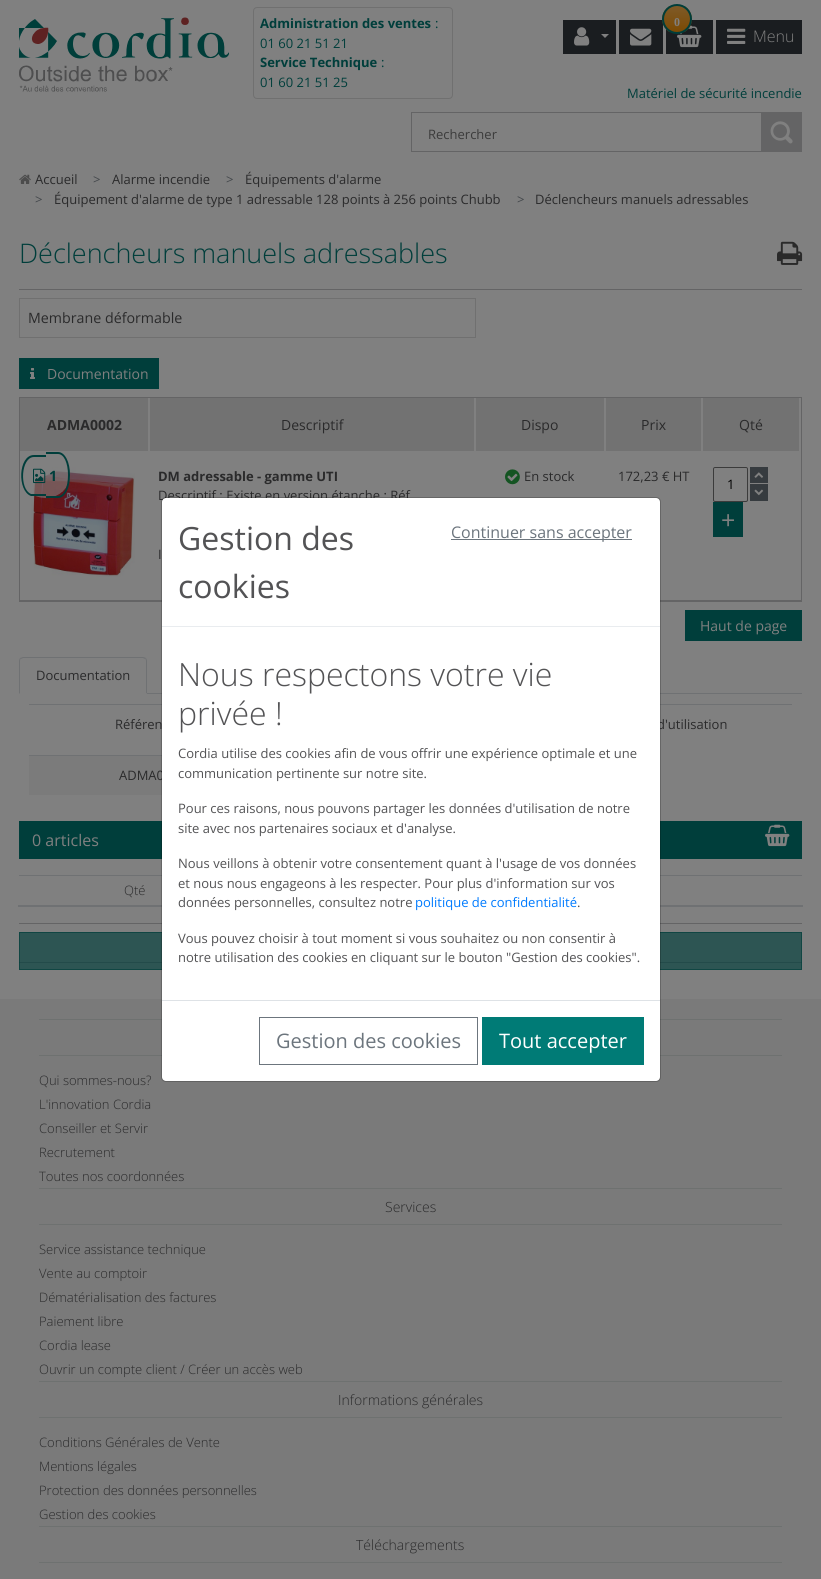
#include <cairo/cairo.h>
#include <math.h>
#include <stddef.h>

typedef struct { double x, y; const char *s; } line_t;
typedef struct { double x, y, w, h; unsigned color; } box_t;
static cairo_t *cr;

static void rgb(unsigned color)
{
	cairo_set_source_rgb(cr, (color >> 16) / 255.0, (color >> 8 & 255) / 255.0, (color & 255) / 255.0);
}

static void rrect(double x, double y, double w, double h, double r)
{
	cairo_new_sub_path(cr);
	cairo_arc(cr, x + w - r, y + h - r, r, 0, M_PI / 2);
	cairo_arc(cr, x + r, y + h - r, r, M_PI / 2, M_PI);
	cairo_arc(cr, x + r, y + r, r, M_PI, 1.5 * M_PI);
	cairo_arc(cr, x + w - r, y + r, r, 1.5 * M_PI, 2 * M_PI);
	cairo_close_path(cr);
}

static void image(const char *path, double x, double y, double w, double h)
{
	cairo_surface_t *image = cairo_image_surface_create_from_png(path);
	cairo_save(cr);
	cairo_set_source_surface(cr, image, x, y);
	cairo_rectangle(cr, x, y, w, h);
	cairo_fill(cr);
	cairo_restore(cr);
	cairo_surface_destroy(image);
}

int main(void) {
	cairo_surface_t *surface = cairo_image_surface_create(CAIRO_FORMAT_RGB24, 821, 1579);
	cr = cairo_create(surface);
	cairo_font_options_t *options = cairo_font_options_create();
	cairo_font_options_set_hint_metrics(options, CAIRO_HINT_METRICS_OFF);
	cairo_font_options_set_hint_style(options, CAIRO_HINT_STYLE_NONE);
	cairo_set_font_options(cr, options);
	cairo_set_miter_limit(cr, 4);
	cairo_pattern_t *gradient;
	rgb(0x808080);
	cairo_paint(cr);
	rgb(0x2d5553);
	cairo_rectangle(cr, 19, 932, 783, 38);
	cairo_fill(cr);
	image("img/1.png", 19, 17, 210, 75);
	rrect(253.5, 7.5, 199, 91, 3.5);
	rgb(0x707070);
	cairo_set_line_width(cr, 1);
	cairo_stroke(cr);
	rgb(0x1a1d20);
	cairo_rectangle(cr, 563, 20, 53, 34);
	cairo_fill(cr);
	image("img/2.png", 574, 27, 16, 19);
	rgb(0x808080);
	cairo_new_path(cr);
	cairo_move_to(cr, 601, 34);
	cairo_line_to(cr, 609, 34);
	cairo_line_to(cr, 605, 38);
	cairo_close_path(cr);
	cairo_fill(cr);
	rgb(0x1a1d20);
	cairo_rectangle(cr, 619, 20, 44, 34);
	cairo_fill(cr);
	image("img/3.png", 630, 28, 22, 18);
	cairo_rectangle(cr, 666, 20, 47, 34);
	cairo_fill(cr);
	image("img/4.png", 677, 25, 25, 23);
	cairo_save(cr);
	rrect(662, 4, 30, 30, 15);
	cairo_clip(cr);
	gradient = cairo_pattern_create_linear(677, 6, 677, 32);
	cairo_pattern_add_color_stop_rgba(gradient, 0, 0.494, 0.353, 0.157, 1);
	cairo_pattern_add_color_stop_rgba(gradient, 1, 0.486, 0.29, 0.012, 1);
	cairo_set_source(cr, gradient);
	cairo_pattern_destroy(gradient);
	cairo_rectangle(cr, 662, 6, 30, 26);
	cairo_fill(cr);
	cairo_restore(cr);
	cairo_arc(cr, 677, 19, 14, 0, 2 * M_PI);
	rgb(0x003e3b);
	cairo_set_line_width(cr, 2);
	cairo_stroke(cr);
	rgb(0x1a1d20);
	cairo_rectangle(cr, 716, 20, 86, 34);
	cairo_fill(cr);
	image("img/5.png", 727, 28, 19, 16);
	cairo_rectangle(cr, 411.5, 112.5, 350, 39);
	rgb(0x646465);
	cairo_set_line_width(cr, 1);
	cairo_stroke(cr);
	cairo_rectangle(cr, 762, 112, 40, 40);
	cairo_fill(cr);
	image("img/6.png", 770, 121, 23, 23);
	image("img/7.png", 19, 174, 12, 10);
	image("img/8.png", 777, 241, 26, 24);
	cairo_rectangle(cr, 19, 289, 783, 1);
	cairo_fill(cr);
	cairo_rectangle(cr, 19.5, 298.5, 456, 39);
	rgb(0x707070);
	cairo_stroke(cr);
	rgb(0x003e3b);
	cairo_rectangle(cr, 19, 358, 140, 31);
	cairo_fill(cr);
	image("img/9.png", 30, 368, 5, 11);
	cairo_rectangle(cr, 19.5, 397.5, 782, 204);
	rgb(0x646465);
	cairo_stroke(cr);
	cairo_rectangle(cr, 20, 600, 781, 1);
	cairo_fill(cr);
	rgb(0x727272);
	cairo_rectangle(cr, 20, 398, 128, 53);
	cairo_fill(cr);
	image("img/10.png", 31, 467, 104, 110);
	image("img/11.png", 34, 467, 36, 31);
	rgb(0x003e3b);
	cairo_set_fill_rule(cr, CAIRO_FILL_RULE_EVEN_ODD);
	cairo_new_path(cr);
	cairo_move_to(cr, 34, 455);
	cairo_line_to(cr, 46, 455);
	cairo_line_to(cr, 46, 496);
	cairo_line_to(cr, 31, 496);
	cairo_curve_to(cr, 17, 491, 18, 455, 34, 455);
	cairo_close_path(cr);
	cairo_move_to(cr, 34, 457);
	cairo_line_to(cr, 46, 457);
	cairo_line_to(cr, 46, 494);
	cairo_line_to(cr, 31, 494);
	cairo_curve_to(cr, 19, 489, 21, 457, 34, 457);
	cairo_close_path(cr);
	cairo_move_to(cr, 46, 452);
	cairo_line_to(cr, 58, 452);
	cairo_curve_to(cr, 65, 452, 70, 462, 70, 475);
	cairo_curve_to(cr, 70, 488, 65, 498, 58, 498);
	cairo_line_to(cr, 46, 498);
	cairo_close_path(cr);
	cairo_move_to(cr, 46, 454);
	cairo_line_to(cr, 58, 454);
	cairo_curve_to(cr, 64, 454, 68, 463, 68, 475);
	cairo_curve_to(cr, 68, 487, 64, 496, 58, 496);
	cairo_line_to(cr, 46, 496);
	cairo_close_path(cr);
	cairo_fill(cr);
	image("img/12.png", 33, 468, 13, 16);
	rgb(0x727272);
	cairo_rectangle(cr, 150, 398, 324, 53);
	cairo_fill(cr);
	cairo_rectangle(cr, 476, 398, 128, 53);
	cairo_fill(cr);
	image("img/13.png", 505, 469, 15, 16);
	cairo_rectangle(cr, 606, 398, 95, 53);
	cairo_fill(cr);
	cairo_rectangle(cr, 703, 398, 96, 53);
	cairo_fill(cr);
	rrect(713.5, 467.5, 34, 34, 1.5);
	rgb(0x3b3b3b);
	cairo_stroke(cr);
	rgb(0x363b3f);
	cairo_rectangle(cr, 750, 467, 18, 16);
	cairo_fill(cr);
	image("img/14.png", 754, 472, 10, 6);
	cairo_rectangle(cr, 750, 484, 18, 17);
	cairo_fill(cr);
	image("img/15.png", 754, 489, 10, 7);
	{
		static const box_t items[] = {
			{713, 502, 30, 35, 0x003e3b},
			{685, 610, 117, 31, 0x003e3b},
			{147, 693, 655, 1, 0x6f7173},
		};
		for (size_t i = 0; i < sizeof items / sizeof *items; i++) {
			rgb(items[i].color);
			cairo_rectangle(cr, items[i].x, items[i].y, items[i].w, items[i].h);
			cairo_fill(cr);
		}
	}
	cairo_set_fill_rule(cr, CAIRO_FILL_RULE_WINDING);
	cairo_new_path(cr);
	cairo_move_to(cr, 23, 657);
	cairo_line_to(cr, 20, 658);
	cairo_line_to(cr, 21, 659);
	cairo_line_to(cr, 23, 658);
	cairo_line_to(cr, 143, 658);
	cairo_line_to(cr, 145, 659);
	cairo_line_to(cr, 146, 658);
	cairo_line_to(cr, 143, 657);
	cairo_close_path(cr);
	cairo_fill(cr);
	cairo_new_path(cr);
	cairo_move_to(cr, 147, 694);
	cairo_line_to(cr, 147, 661);
	cairo_curve_to(cr, 147, 660, 146.5, 659, 146, 658);
	cairo_line_to(cr, 145, 659);
	cairo_curve_to(cr, 146, 659, 146, 660, 146, 661);
	cairo_line_to(cr, 146, 693);
	cairo_close_path(cr);
	cairo_fill(cr);
	rgb(0x808080);
	cairo_new_path(cr);
	cairo_move_to(cr, 147, 694);
	cairo_line_to(cr, 146, 693);
	cairo_line_to(cr, 20, 693);
	cairo_line_to(cr, 19, 694);
	cairo_close_path(cr);
	cairo_fill(cr);
	rgb(0x6f7173);
	cairo_new_path(cr);
	cairo_move_to(cr, 19, 694);
	cairo_line_to(cr, 20, 693);
	cairo_line_to(cr, 20, 661);
	cairo_curve_to(cr, 20, 660, 20, 659, 21, 659);
	cairo_line_to(cr, 20, 658);
	cairo_curve_to(cr, 19.5, 659, 19, 660, 19, 661);
	cairo_close_path(cr);
	cairo_fill(cr);
	{
		static const box_t items[] = {
			{29, 704, 133, 1, 0x6f7173},
			{660, 704, 132, 1, 0x6f7173},
			{29, 756, 133, 39, 0x7b7b7b},
			{29, 755, 133, 1, 0x6f7173},
			{19, 821, 783, 38, 0x003e3b},
		};
		for (size_t i = 0; i < sizeof items / sizeof *items; i++) {
			rgb(items[i].color);
			cairo_rectangle(cr, items[i].x, items[i].y, items[i].w, items[i].h);
			cairo_fill(cr);
		}
	}
	image("img/16.png", 765, 824, 25, 23);
	{
		static const box_t items[] = {
			{19, 875, 143, 1, 0x6f7173},
			{18, 905, 144, 2, 0x6f7173},
			{660, 875, 142, 1, 0x6f7173},
			{660, 905, 143, 2, 0x6f7173},
			{19, 923, 783, 1, 0x646465},
			{19, 962, 783, 1, 0x234b4a},
		};
		for (size_t i = 0; i < sizeof items / sizeof *items; i++) {
			rgb(items[i].color);
			cairo_rectangle(cr, items[i].x, items[i].y, items[i].w, items[i].h);
			cairo_fill(cr);
		}
	}
	cairo_rectangle(cr, 19.5, 932.5, 782, 37);
	cairo_set_source_rgba(cr, 0, 0.243, 0.231, 0.65);
	cairo_stroke(cr);
	{
		static const box_t items[] = {
			{0, 999, 821, 580, 0x7a7a7a},
			{39, 1019, 743, 1, 0x6e7170},
			{39, 1055, 743, 1, 0x6e7170},
			{39, 1188, 743, 1, 0x6e7170},
			{39, 1224, 743, 1, 0x6e7170},
			{39, 1381, 743, 1, 0x6e7170},
			{39, 1417, 743, 1, 0x6e7170},
			{39, 1526, 743, 1, 0x6e7170},
			{39, 1562, 743, 1, 0x6e7170},
		};
		for (size_t i = 0; i < sizeof items / sizeof *items; i++) {
			rgb(items[i].color);
			cairo_rectangle(cr, items[i].x, items[i].y, items[i].w, items[i].h);
			cairo_fill(cr);
		}
	}
	cairo_select_font_face(cr, "Open Sans", CAIRO_FONT_SLANT_NORMAL, CAIRO_FONT_WEIGHT_BOLD);
	cairo_set_font_size(cr, 13);
	rgb(0x003e3b);
	cairo_move_to(cr, 260, 28);
	cairo_show_text(cr, "Administration des ventes");
	cairo_select_font_face(cr, "Open Sans", CAIRO_FONT_SLANT_NORMAL, CAIRO_FONT_WEIGHT_NORMAL);
	cairo_move_to(cr, 435, 28);
	cairo_show_text(cr, ":");
	cairo_move_to(cr, 260, 48);
	cairo_show_text(cr, "01 60 21 51 21");
	cairo_select_font_face(cr, "Open Sans", CAIRO_FONT_SLANT_NORMAL, CAIRO_FONT_WEIGHT_BOLD);
	cairo_move_to(cr, 260, 67);
	cairo_show_text(cr, "Service Technique");
	cairo_select_font_face(cr, "Open Sans", CAIRO_FONT_SLANT_NORMAL, CAIRO_FONT_WEIGHT_NORMAL);
	cairo_move_to(cr, 381, 67);
	cairo_show_text(cr, ":");
	cairo_move_to(cr, 260, 87);
	cairo_show_text(cr, "01 60 21 51 25");
	cairo_select_font_face(cr, "Liberation Serif", CAIRO_FONT_SLANT_NORMAL, CAIRO_FONT_WEIGHT_BOLD);
	cairo_set_font_size(cr, 12);
	rgb(0x808080);
	cairo_move_to(cr, 674, 26);
	cairo_show_text(cr, "0");
	cairo_select_font_face(cr, "Open Sans Light", CAIRO_FONT_SLANT_NORMAL, CAIRO_FONT_WEIGHT_NORMAL);
	cairo_set_font_size(cr, 16);
	cairo_move_to(cr, 753, 42);
	cairo_show_text(cr, "Menu");
	cairo_select_font_face(cr, "Open Sans", CAIRO_FONT_SLANT_NORMAL, CAIRO_FONT_WEIGHT_NORMAL);
	cairo_set_font_size(cr, 13);
	rgb(0x003e3b);
	cairo_move_to(cr, 627, 98);
	cairo_show_text(cr, "Matériel de sécurité incendie");
	rgb(0x3b3b3b);
	cairo_move_to(cr, 428, 139);
	cairo_show_text(cr, "Rechercher");
	rgb(0x2a2a2b);
	cairo_move_to(cr, 35, 184);
	cairo_show_text(cr, "Accueil");
	rgb(0x43474b);
	cairo_move_to(cr, 93, 184);
	cairo_show_text(cr, ">");
	rgb(0x2a2a2b);
	cairo_move_to(cr, 112, 184);
	cairo_show_text(cr, "Alarme incendie");
	rgb(0x43474b);
	cairo_move_to(cr, 226, 184);
	cairo_show_text(cr, ">");
	rgb(0x2a2a2b);
	cairo_move_to(cr, 245, 184);
	cairo_show_text(cr, "Équipements d'alarme");
	rgb(0x43474b);
	cairo_move_to(cr, 35, 204);
	cairo_show_text(cr, ">");
	rgb(0x2a2a2b);
	cairo_move_to(cr, 54, 204);
	cairo_show_text(cr, "Équipement d'alarme de type 1 adressable 128 points à 256 points Chubb");
	rgb(0x43474b);
	cairo_move_to(cr, 517, 204);
	cairo_show_text(cr, ">");
	rgb(0x2a2a2b);
	cairo_move_to(cr, 535, 204);
	cairo_show_text(cr, "Déclencheurs manuels adressables");
	cairo_select_font_face(cr, "Open Sans Light", CAIRO_FONT_SLANT_NORMAL, CAIRO_FONT_WEIGHT_NORMAL);
	cairo_set_font_size(cr, 27);
	rgb(0x003e3b);
	cairo_move_to(cr, 19, 263);
	cairo_show_text(cr, "Déclencheurs manuels adressables");
	cairo_select_font_face(cr, "Open Sans", CAIRO_FONT_SLANT_NORMAL, CAIRO_FONT_WEIGHT_NORMAL);
	cairo_set_font_size(cr, 14.25);
	rgb(0x2a2a2b);
	cairo_move_to(cr, 28, 323);
	cairo_show_text(cr, "Membrane déformable");
	cairo_set_font_size(cr, 14);
	rgb(0x808080);
	cairo_move_to(cr, 47, 379);
	cairo_show_text(cr, "Documentation");
	cairo_select_font_face(cr, "Open Sans", CAIRO_FONT_SLANT_NORMAL, CAIRO_FONT_WEIGHT_BOLD);
	rgb(0x2a2a2b);
	cairo_move_to(cr, 47, 430);
	cairo_show_text(cr, "ADMA0002");
	cairo_set_font_size(cr, 14.25);
	rgb(0x003e3b);
	cairo_move_to(cr, 49, 481);
	cairo_show_text(cr, "1");
	cairo_select_font_face(cr, "Open Sans", CAIRO_FONT_SLANT_NORMAL, CAIRO_FONT_WEIGHT_NORMAL);
	cairo_set_font_size(cr, 14);
	rgb(0x2a2a2b);
	cairo_move_to(cr, 281, 430);
	cairo_show_text(cr, "Descriptif");
	cairo_select_font_face(cr, "Open Sans", CAIRO_FONT_SLANT_NORMAL, CAIRO_FONT_WEIGHT_BOLD);
	cairo_set_font_size(cr, 13);
	cairo_move_to(cr, 158, 481);
	cairo_show_text(cr, "DM adressable - gamme UTI");
	cairo_select_font_face(cr, "Open Sans", CAIRO_FONT_SLANT_NORMAL, CAIRO_FONT_WEIGHT_NORMAL);
	cairo_move_to(cr, 158, 500);
	cairo_show_text(cr, "Descriptif : Existe en version étanche : Réf.");
	cairo_move_to(cr, 158, 559);
	cairo_show_text(cr, "I");
	cairo_set_font_size(cr, 14);
	cairo_move_to(cr, 521, 430);
	cairo_show_text(cr, "Dispo");
	cairo_set_font_size(cr, 13);
	cairo_move_to(cr, 524, 481);
	cairo_show_text(cr, "En stock");
	cairo_set_font_size(cr, 14);
	cairo_move_to(cr, 641, 430);
	cairo_show_text(cr, "Prix");
	cairo_set_font_size(cr, 13);
	cairo_move_to(cr, 618, 481);
	cairo_show_text(cr, "172,23 € HT");
	cairo_set_font_size(cr, 14);
	cairo_move_to(cr, 739, 430);
	cairo_show_text(cr, "Qté");
	cairo_set_font_size(cr, 13);
	rgb(0x000000);
	cairo_move_to(cr, 727, 489);
	cairo_show_text(cr, "1");
	cairo_set_font_size(cr, 25);
	rgb(0x808080);
	cairo_move_to(cr, 721, 529);
	cairo_show_text(cr, "+");
	cairo_set_font_size(cr, 14);
	cairo_move_to(cr, 700, 631);
	cairo_show_text(cr, "Haut de page");
	cairo_set_font_size(cr, 13);
	rgb(0x2a2a2b);
	{
		static const line_t items[] = {
			{36, 680, "Documentation"},
			{115, 729, "Référen"},
			{657, 729, "d'utilisation"},
			{119, 780, "ADMA0"},
		};
		for (size_t i = 0; i < sizeof items / sizeof *items; i++) {
			cairo_move_to(cr, items[i].x, items[i].y);
			cairo_show_text(cr, items[i].s);
		}
	}
	cairo_set_font_size(cr, 16);
	rgb(0x808080);
	cairo_move_to(cr, 32, 846);
	cairo_show_text(cr, "0 articles");
	cairo_select_font_face(cr, "Open Sans Light", CAIRO_FONT_SLANT_NORMAL, CAIRO_FONT_WEIGHT_NORMAL);
	cairo_set_font_size(cr, 13);
	rgb(0x2a2a2b);
	{
		static const line_t items[] = {
			{124, 895, "Qté"},
			{39, 1085, "Qui sommes-nous?"},
			{39, 1109, "L'innovation Cordia"},
			{39, 1133, "Conseiller et Servir"},
			{39, 1157, "Recrutement"},
			{39, 1181, "Toutes nos coordonnées"},
		};
		for (size_t i = 0; i < sizeof items / sizeof *items; i++) {
			cairo_move_to(cr, items[i].x, items[i].y);
			cairo_show_text(cr, items[i].s);
		}
	}
	cairo_set_font_size(cr, 14);
	cairo_move_to(cr, 385, 1212);
	cairo_show_text(cr, "Services");
	cairo_set_font_size(cr, 13);
	{
		static const line_t items[] = {
			{39, 1254, "Service assistance technique"},
			{39, 1278, "Vente au comptoir"},
			{39, 1302, "Dématérialisation des factures"},
			{39, 1326, "Paiement libre"},
			{39, 1350, "Cordia lease"},
			{39, 1374, "Ouvrir un compte client / Créer un accès web"},
		};
		for (size_t i = 0; i < sizeof items / sizeof *items; i++) {
			cairo_move_to(cr, items[i].x, items[i].y);
			cairo_show_text(cr, items[i].s);
		}
	}
	cairo_set_font_size(cr, 14);
	cairo_move_to(cr, 338, 1405);
	cairo_show_text(cr, "Informations générales");
	cairo_set_font_size(cr, 13);
	{
		static const line_t items[] = {
			{39, 1447, "Conditions Générales de Vente"},
			{39, 1471, "Mentions légales"},
			{39, 1495, "Protection des données personnelles"},
			{39, 1519, "Gestion des cookies"},
		};
		for (size_t i = 0; i < sizeof items / sizeof *items; i++) {
			cairo_move_to(cr, items[i].x, items[i].y);
			cairo_show_text(cr, items[i].s);
		}
	}
	cairo_set_font_size(cr, 14);
	cairo_move_to(cr, 356, 1550);
	cairo_show_text(cr, "Téléchargements");
	rgb(0xffffff);
	rrect(162, 498, 498, 583, 4);
	cairo_fill(cr);
	rrect(161.5, 497.5, 499, 584, 4.5);
	cairo_set_source_rgba(cr, 0, 0, 0, 0.2);
	cairo_stroke(cr);
	rgb(0xe9ecef);
	cairo_rectangle(cr, 162, 626, 498, 1);
	cairo_fill(cr);
	cairo_select_font_face(cr, "Open Sans", CAIRO_FONT_SLANT_NORMAL, CAIRO_FONT_WEIGHT_NORMAL);
	cairo_set_font_size(cr, 32);
	rgb(0x535355);
	cairo_move_to(cr, 178, 550);
	cairo_show_text(cr, "Gestion des");
	cairo_move_to(cr, 178, 598);
	cairo_show_text(cr, "cookies");
	rgb(0x6c757d);
	cairo_rectangle(cr, 451, 539, 181, 1);
	cairo_fill(cr);
	cairo_set_font_size(cr, 16);
	cairo_move_to(cr, 451, 538);
	cairo_show_text(cr, "Continuer sans accepter");
	cairo_select_font_face(cr, "Open Sans Light", CAIRO_FONT_SLANT_NORMAL, CAIRO_FONT_WEIGHT_NORMAL);
	cairo_set_font_size(cr, 32);
	rgb(0x535355);
	cairo_move_to(cr, 178, 686);
	cairo_show_text(cr, "Nous respectons votre vie");
	cairo_move_to(cr, 178, 725);
	cairo_show_text(cr, "privée !");
	cairo_select_font_face(cr, "Open Sans", CAIRO_FONT_SLANT_NORMAL, CAIRO_FONT_WEIGHT_NORMAL);
	cairo_set_font_size(cr, 13);
	{
		static const line_t items[] = {
			{178, 758, "Cordia utilise des cookies afin de vous offrir une expérience optimale et une"},
			{178, 778, "communication pertinente sur notre site."},
			{178, 813, "Pour ces raisons, nous pouvons partager les données d'utilisation de notre"},
			{178, 833, "site avec nos partenaires sociaux et d'analyse."},
			{178, 868, "Nous veillons à obtenir votre consentement quant à l'usage de vos données"},
			{178, 888, "et nous nous engageons à les respecter. Pour plus d'information sur vos"},
			{178, 907, "données personnelles, consultez notre"},
		};
		for (size_t i = 0; i < sizeof items / sizeof *items; i++) {
			cairo_move_to(cr, items[i].x, items[i].y);
			cairo_show_text(cr, items[i].s);
		}
	}
	rgb(0x007bff);
	cairo_move_to(cr, 415, 907);
	cairo_show_text(cr, "politique de confidentialité");
	rgb(0x535355);
	{
		static const line_t items[] = {
			{577, 907, "."},
			{178, 943, "Vous pouvez choisir à tout moment si vous souhaitez ou non consentir à"},
			{178, 962, "notre utilisation des cookies en cliquant sur le bouton \"Gestion des cookies\"."},
		};
		for (size_t i = 0; i < sizeof items / sizeof *items; i++) {
			cairo_move_to(cr, items[i].x, items[i].y);
			cairo_show_text(cr, items[i].s);
		}
	}
	rgb(0xdee2e6);
	cairo_rectangle(cr, 162, 1000, 498, 1);
	cairo_fill(cr);
	cairo_rectangle(cr, 259.5, 1017.5, 218, 47);
	rgb(0x6c757d);
	cairo_stroke(cr);
	cairo_set_font_size(cr, 20);
	cairo_move_to(cr, 276, 1048);
	cairo_show_text(cr, "Gestion des cookies");
	rgb(0x007b76);
	cairo_rectangle(cr, 482, 1017, 162, 48);
	cairo_fill(cr);
	rgb(0xffffff);
	cairo_move_to(cr, 499, 1048);
	cairo_show_text(cr, "Tout accepter");
	cairo_surface_write_to_png(surface, "page.png");
	cairo_font_options_destroy(options);
	cairo_destroy(cr);
	cairo_surface_destroy(surface);
	return 0;
}
